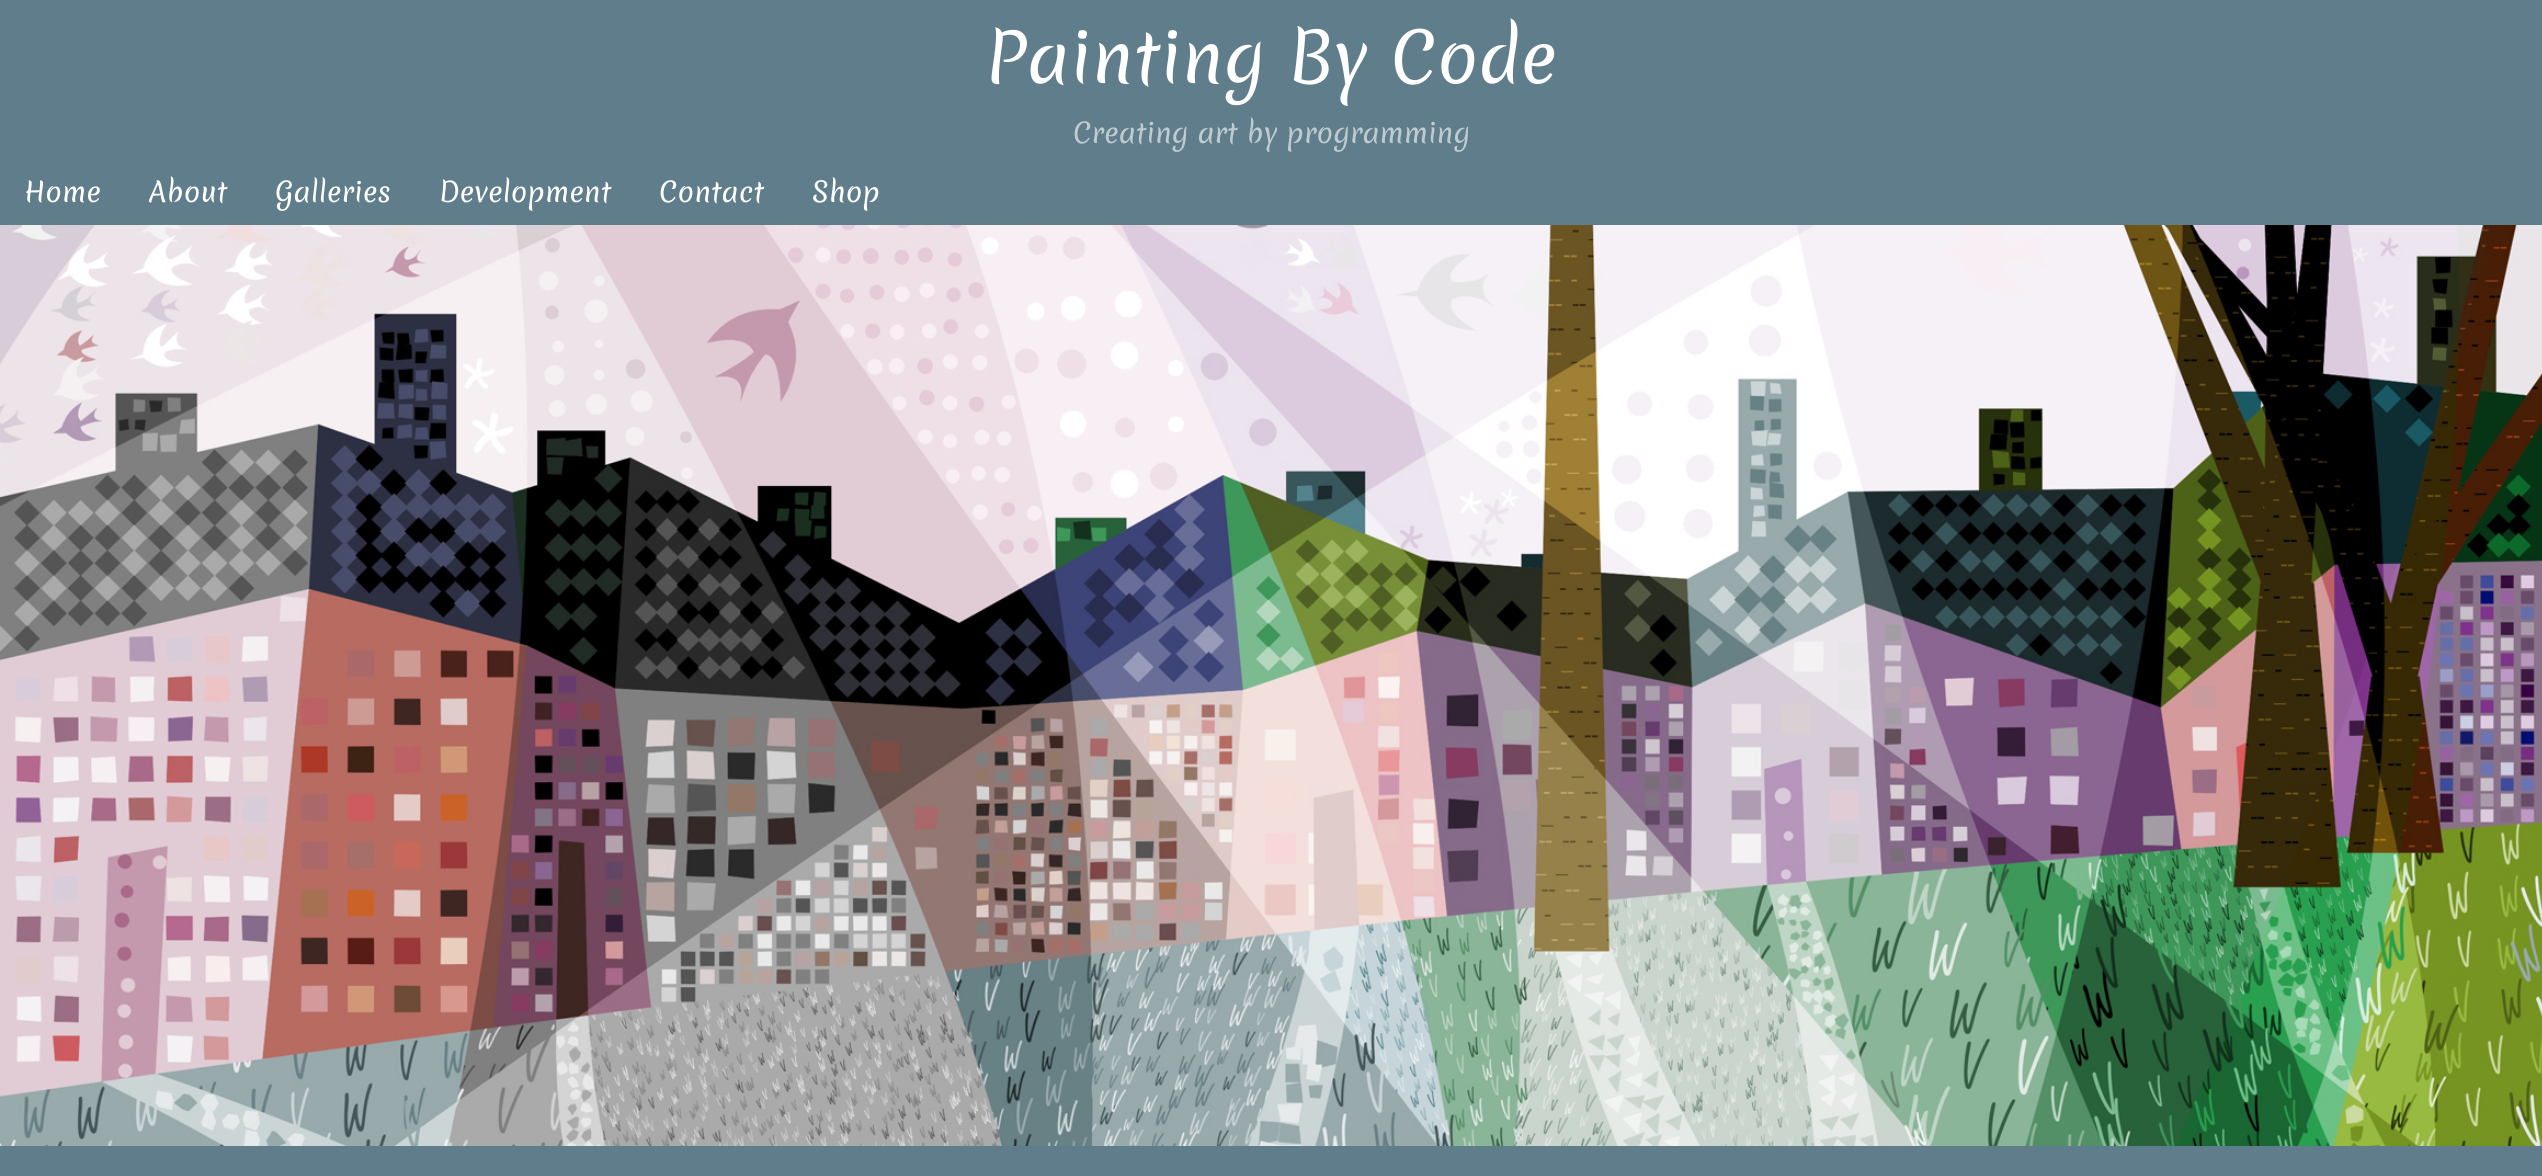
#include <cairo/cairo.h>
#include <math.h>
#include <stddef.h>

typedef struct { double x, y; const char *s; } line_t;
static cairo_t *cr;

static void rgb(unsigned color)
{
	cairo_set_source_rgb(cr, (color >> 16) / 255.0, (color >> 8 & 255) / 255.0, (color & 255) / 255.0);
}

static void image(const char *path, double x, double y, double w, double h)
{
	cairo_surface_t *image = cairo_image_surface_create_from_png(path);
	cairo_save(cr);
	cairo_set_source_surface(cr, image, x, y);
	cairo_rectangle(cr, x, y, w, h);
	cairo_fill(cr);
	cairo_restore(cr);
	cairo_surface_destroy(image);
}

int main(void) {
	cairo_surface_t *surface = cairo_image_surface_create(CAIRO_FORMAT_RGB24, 2542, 1176);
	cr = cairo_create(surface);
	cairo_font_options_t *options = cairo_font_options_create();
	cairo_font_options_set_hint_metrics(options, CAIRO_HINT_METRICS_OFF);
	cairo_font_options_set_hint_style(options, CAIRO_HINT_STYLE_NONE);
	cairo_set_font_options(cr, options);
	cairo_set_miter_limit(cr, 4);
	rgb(0x607d8b);
	cairo_paint(cr);
	image("img/1.png", 0, 225, 2542, 921);
	cairo_select_font_face(cr, "Merienda", CAIRO_FONT_SLANT_NORMAL, CAIRO_FONT_WEIGHT_NORMAL);
	cairo_set_font_size(cr, 67.5);
	rgb(0xffffff);
	cairo_move_to(cr, 985, 83);
	cairo_show_text(cr, "Painting By Code");
	cairo_set_font_size(cr, 27);
	rgb(0xbfcbd1);
	cairo_move_to(cr, 1073, 143);
	cairo_show_text(cr, "Creating art by programming");
	rgb(0xffffff);
	{
		static const line_t items[] = {
			{24, 202, "Home"},
			{149, 202, "About"},
			{275, 202, "Galleries"},
			{439, 202, "Development"},
			{659, 202, "Contact"},
			{812, 202, "Shop"},
		};
		for (size_t i = 0; i < sizeof items / sizeof *items; i++) {
			cairo_move_to(cr, items[i].x, items[i].y);
			cairo_show_text(cr, items[i].s);
		}
	}
	cairo_surface_write_to_png(surface, "page.png");
	cairo_font_options_destroy(options);
	cairo_destroy(cr);
	cairo_surface_destroy(surface);
	return 0;
}
